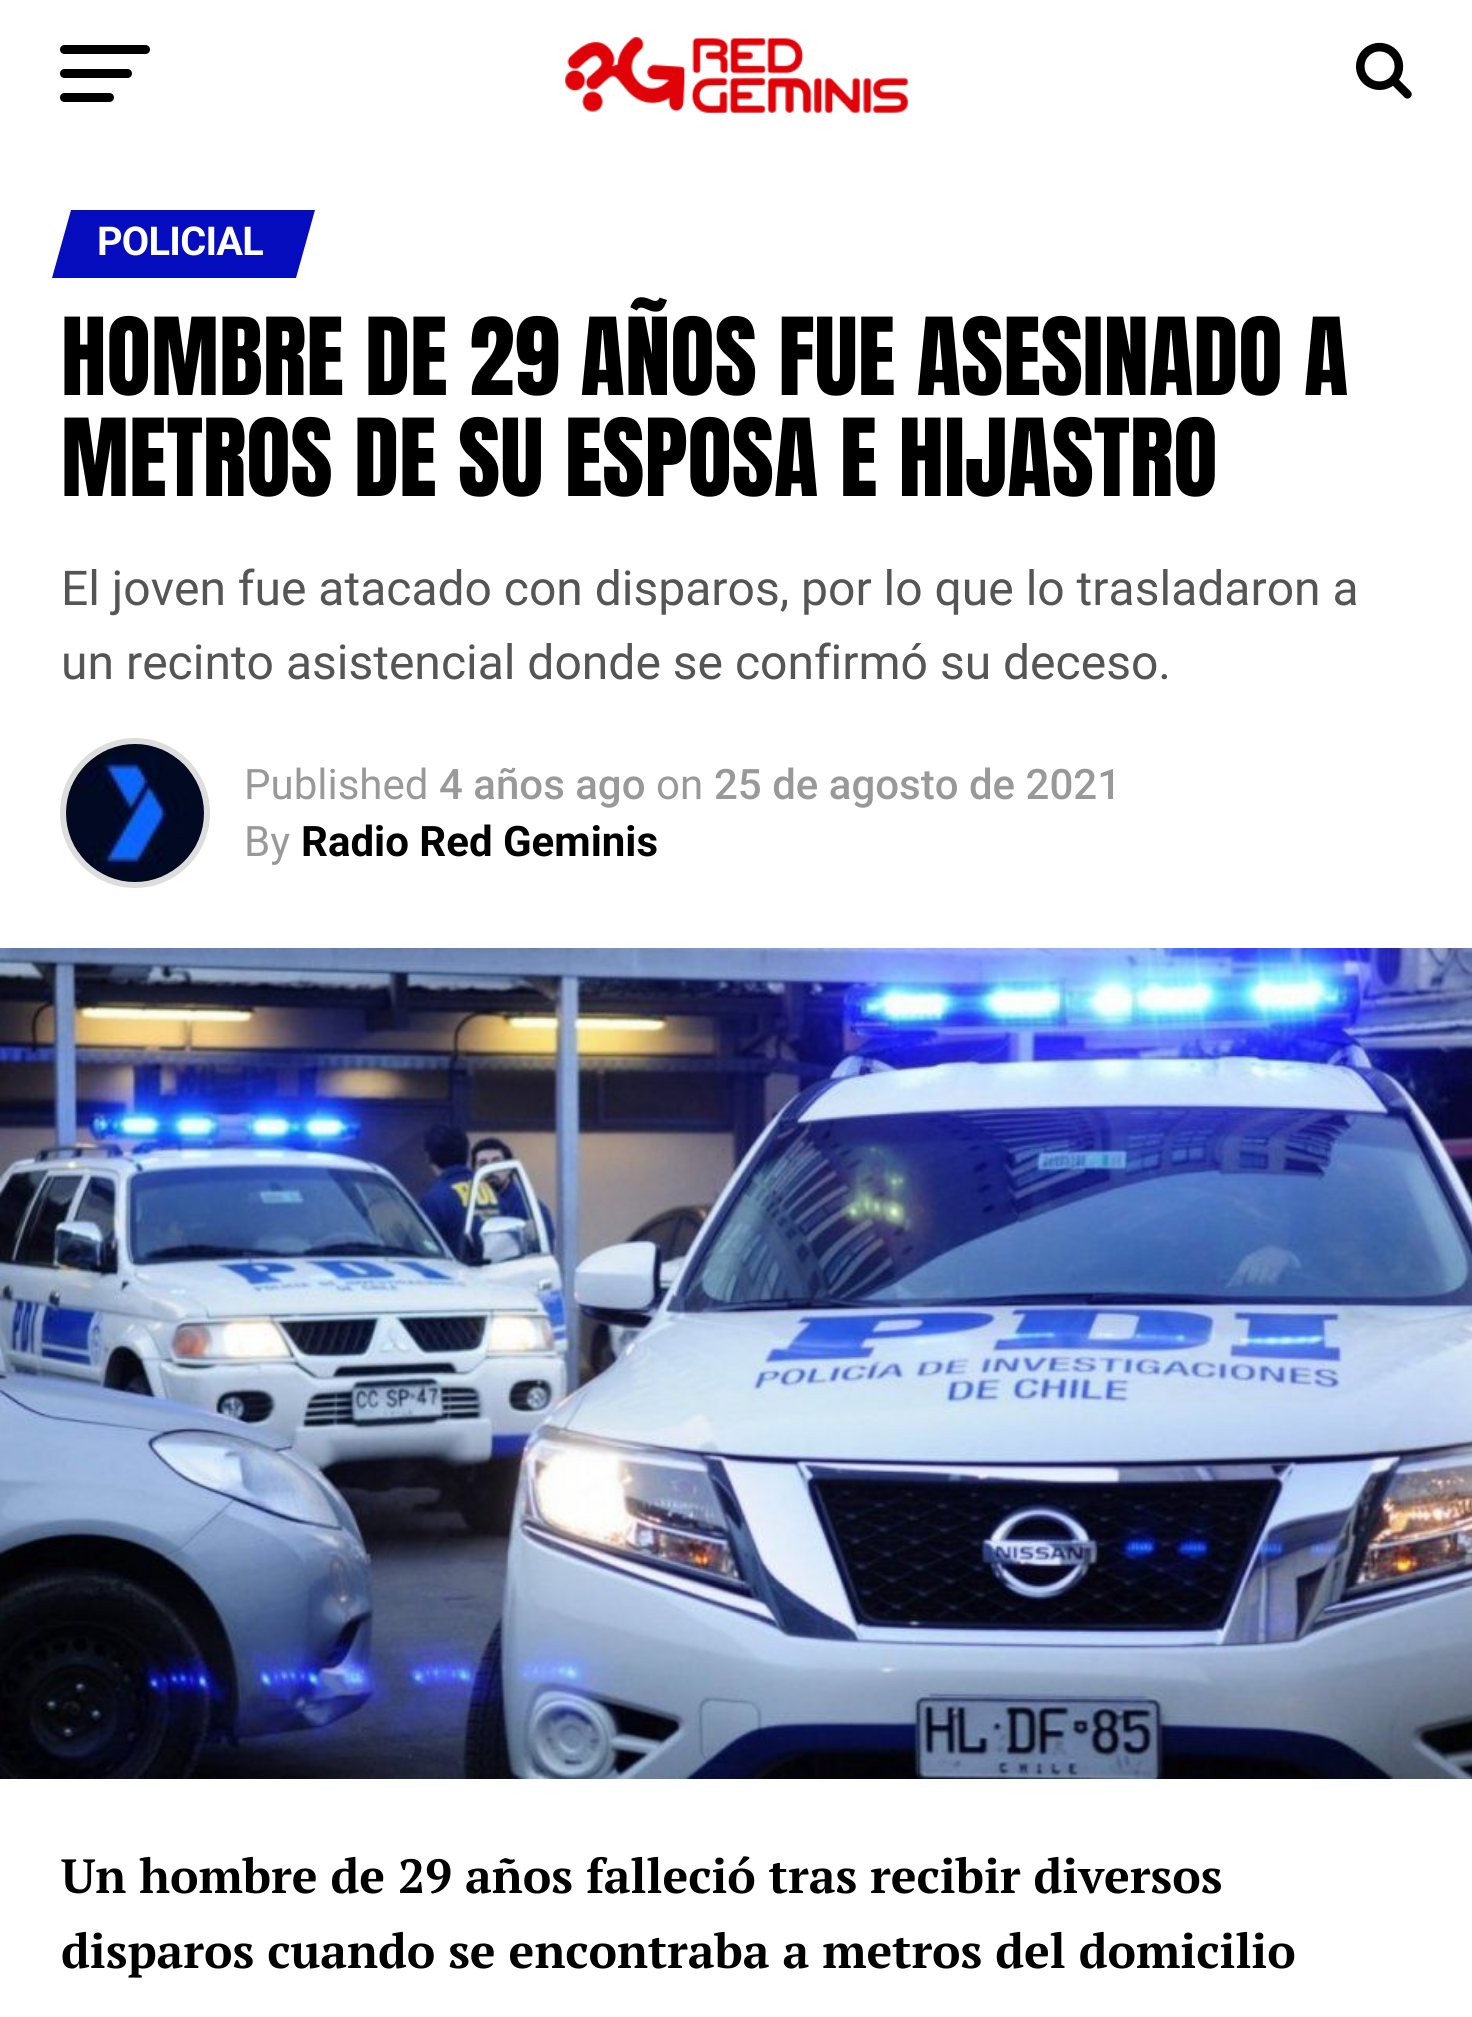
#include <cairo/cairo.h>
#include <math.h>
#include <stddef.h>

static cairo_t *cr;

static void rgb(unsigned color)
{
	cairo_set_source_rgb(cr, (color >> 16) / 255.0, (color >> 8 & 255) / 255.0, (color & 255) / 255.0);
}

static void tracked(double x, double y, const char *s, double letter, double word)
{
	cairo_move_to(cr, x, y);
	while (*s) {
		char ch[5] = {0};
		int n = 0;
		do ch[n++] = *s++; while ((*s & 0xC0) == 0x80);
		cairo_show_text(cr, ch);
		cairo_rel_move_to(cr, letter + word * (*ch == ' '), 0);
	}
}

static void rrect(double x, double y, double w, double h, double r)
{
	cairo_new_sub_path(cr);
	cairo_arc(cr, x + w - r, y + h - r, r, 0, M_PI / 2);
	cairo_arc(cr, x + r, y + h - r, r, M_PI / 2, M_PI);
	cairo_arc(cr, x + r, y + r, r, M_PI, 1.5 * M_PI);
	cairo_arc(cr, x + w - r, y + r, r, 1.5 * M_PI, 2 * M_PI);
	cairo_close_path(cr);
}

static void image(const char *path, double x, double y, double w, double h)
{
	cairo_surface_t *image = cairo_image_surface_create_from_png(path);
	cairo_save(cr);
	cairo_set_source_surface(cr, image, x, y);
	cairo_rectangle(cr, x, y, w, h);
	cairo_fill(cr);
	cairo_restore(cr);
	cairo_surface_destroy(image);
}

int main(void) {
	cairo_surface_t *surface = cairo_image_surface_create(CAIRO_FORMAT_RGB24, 1472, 2017);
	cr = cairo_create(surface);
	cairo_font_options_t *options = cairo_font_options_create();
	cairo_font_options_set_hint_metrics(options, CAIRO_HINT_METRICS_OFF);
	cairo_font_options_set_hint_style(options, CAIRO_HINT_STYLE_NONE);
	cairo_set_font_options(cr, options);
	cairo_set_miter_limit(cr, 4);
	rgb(0xffffff);
	cairo_paint(cr);
	rgb(0x000000);
	rrect(60, 45, 90, 9, 4.5);
	cairo_fill(cr);
	rrect(60, 69, 72, 9, 4.5);
	cairo_fill(cr);
	rrect(60, 93, 54, 9, 4.5);
	cairo_fill(cr);
	image("img/1.png", 565, 37, 343, 76);
	image("img/2.png", 1356, 42, 56, 57);
	rgb(0x060dbe);
	cairo_new_path(cr);
	cairo_move_to(cr, 71, 210);
	cairo_line_to(cr, 315, 210);
	cairo_line_to(cr, 296, 278);
	cairo_line_to(cr, 52, 278);
	cairo_close_path(cr);
	cairo_fill(cr);
	cairo_arc(cr, 135, 813, 72, 0, 2 * M_PI);
	rgb(0xdddddd);
	cairo_set_line_width(cr, 6);
	cairo_stroke(cr);
	image("img/3.png", 66, 744, 138, 138);
	image("img/4.png", 0, 948, 1472, 831);
	cairo_select_font_face(cr, "Roboto", CAIRO_FONT_SLANT_NORMAL, CAIRO_FONT_WEIGHT_BOLD);
	cairo_set_font_size(cr, 39.75);
	rgb(0xffffff);
	tracked(97, 255, "POLICIAL", -0.75, 0);
	cairo_select_font_face(cr, "Anton", CAIRO_FONT_SLANT_NORMAL, CAIRO_FONT_WEIGHT_NORMAL);
	cairo_set_font_size(cr, 91.25);
	rgb(0x000000);
	cairo_move_to(cr, 61, 395);
	cairo_show_text(cr, "HOMBRE DE 29 AÑOS FUE ASESINADO A");
	cairo_move_to(cr, 61, 496);
	cairo_show_text(cr, "METROS DE SU ESPOSA E HIJASTRO");
	cairo_select_font_face(cr, "Roboto", CAIRO_FONT_SLANT_NORMAL, CAIRO_FONT_WEIGHT_NORMAL);
	cairo_set_font_size(cr, 48);
	rgb(0x555555);
	cairo_move_to(cr, 61, 605);
	cairo_show_text(cr, "El joven fue atacado con disparos, por lo que lo trasladaron a");
	cairo_move_to(cr, 61, 679);
	cairo_show_text(cr, "un recinto asistencial donde se confirmó su deceso.");
	cairo_set_font_size(cr, 42);
	rgb(0x999999);
	cairo_move_to(cr, 244, 799);
	cairo_show_text(cr, "Published");
	cairo_select_font_face(cr, "Roboto Medium", CAIRO_FONT_SLANT_NORMAL, CAIRO_FONT_WEIGHT_NORMAL);
	cairo_move_to(cr, 439, 799);
	cairo_show_text(cr, "4 años ago");
	cairo_select_font_face(cr, "Roboto", CAIRO_FONT_SLANT_NORMAL, CAIRO_FONT_WEIGHT_NORMAL);
	cairo_move_to(cr, 656, 799);
	cairo_show_text(cr, "on");
	cairo_select_font_face(cr, "Roboto Medium", CAIRO_FONT_SLANT_NORMAL, CAIRO_FONT_WEIGHT_NORMAL);
	cairo_move_to(cr, 714, 799);
	cairo_show_text(cr, "25 de agosto de 2021");
	cairo_select_font_face(cr, "Roboto", CAIRO_FONT_SLANT_NORMAL, CAIRO_FONT_WEIGHT_NORMAL);
	cairo_move_to(cr, 244, 856);
	cairo_show_text(cr, "By");
	cairo_select_font_face(cr, "Roboto", CAIRO_FONT_SLANT_NORMAL, CAIRO_FONT_WEIGHT_BOLD);
	rgb(0x000000);
	cairo_move_to(cr, 301, 856);
	cairo_show_text(cr, "Radio Red Geminis");
	cairo_select_font_face(cr, "PT Serif", CAIRO_FONT_SLANT_NORMAL, CAIRO_FONT_WEIGHT_BOLD);
	cairo_set_font_size(cr, 48);
	cairo_move_to(cr, 61, 1893);
	cairo_show_text(cr, "Un hombre de 29 años falleció tras recibir diversos");
	cairo_move_to(cr, 61, 1968);
	cairo_show_text(cr, "disparos cuando se encontraba a metros del domicilio");
	cairo_surface_write_to_png(surface, "page.png");
	cairo_font_options_destroy(options);
	cairo_destroy(cr);
	cairo_surface_destroy(surface);
	return 0;
}
